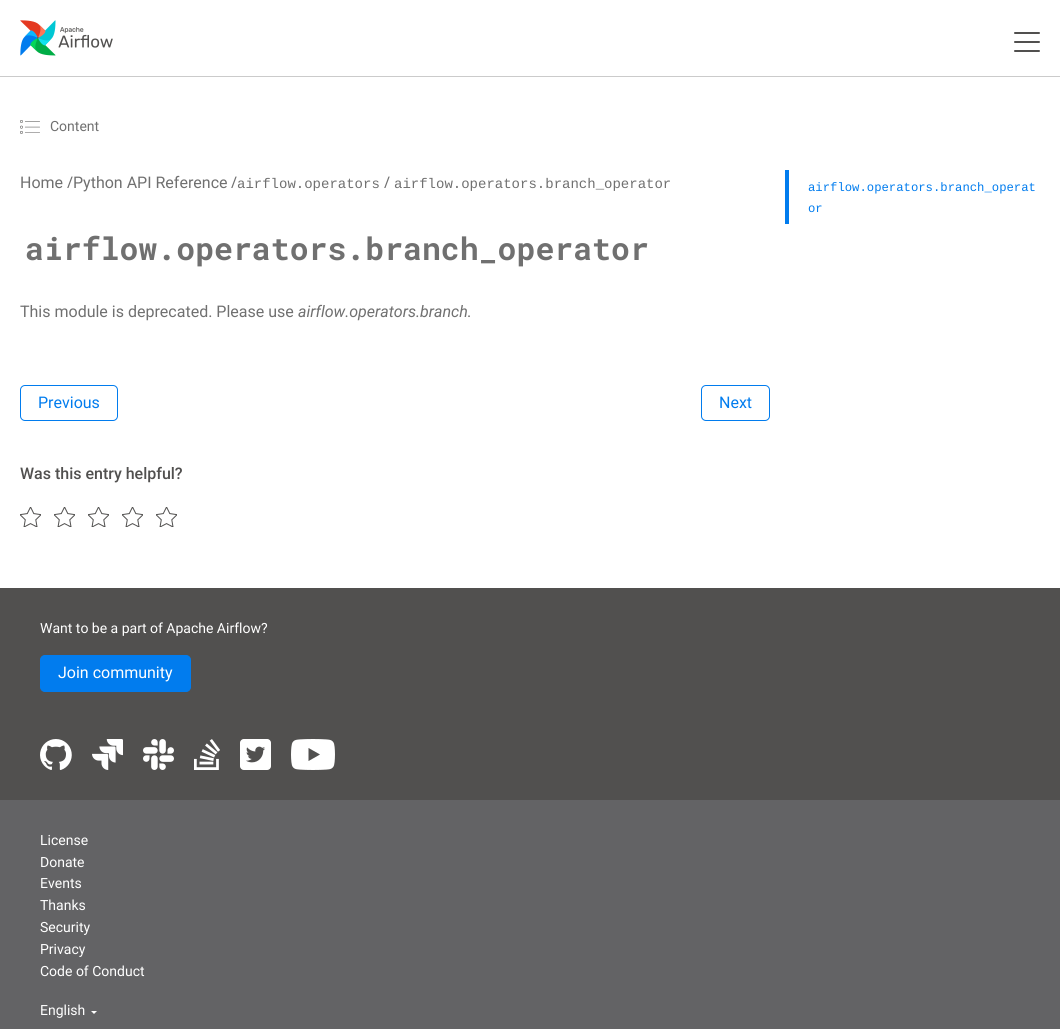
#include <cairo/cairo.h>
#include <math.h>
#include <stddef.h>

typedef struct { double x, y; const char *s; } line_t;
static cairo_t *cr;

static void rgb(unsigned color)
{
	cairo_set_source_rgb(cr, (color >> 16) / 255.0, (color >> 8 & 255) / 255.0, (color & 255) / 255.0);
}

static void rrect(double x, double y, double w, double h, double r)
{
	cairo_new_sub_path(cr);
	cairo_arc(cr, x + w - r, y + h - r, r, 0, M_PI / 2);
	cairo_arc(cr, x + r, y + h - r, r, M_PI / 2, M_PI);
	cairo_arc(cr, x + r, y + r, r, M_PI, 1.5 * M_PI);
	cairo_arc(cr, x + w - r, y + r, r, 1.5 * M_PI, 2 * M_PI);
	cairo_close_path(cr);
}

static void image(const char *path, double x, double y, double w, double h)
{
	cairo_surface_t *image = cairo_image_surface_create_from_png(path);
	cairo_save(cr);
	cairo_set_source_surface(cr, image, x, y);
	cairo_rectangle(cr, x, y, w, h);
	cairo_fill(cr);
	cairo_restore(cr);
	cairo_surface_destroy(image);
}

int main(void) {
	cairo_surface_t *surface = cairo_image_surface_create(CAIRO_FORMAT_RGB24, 1060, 1029);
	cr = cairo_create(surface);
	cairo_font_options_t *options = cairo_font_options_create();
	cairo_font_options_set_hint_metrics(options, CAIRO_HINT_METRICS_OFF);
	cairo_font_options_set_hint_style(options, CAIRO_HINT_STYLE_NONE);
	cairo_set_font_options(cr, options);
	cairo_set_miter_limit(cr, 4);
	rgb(0xffffff);
	cairo_paint(cr);
	rgb(0xcbcbcb);
	cairo_rectangle(cr, 0, 76, 1060, 1);
	cairo_fill(cr);
	image("img/1.png", 20, 20, 93, 36);
	rgb(0x51504f);
	rrect(1014, 32, 26, 2, 1);
	cairo_fill(cr);
	rrect(1014, 41, 26, 2, 1);
	cairo_fill(cr);
	rrect(1014, 50, 26, 2, 1);
	cairo_fill(cr);
	image("img/2.png", 20, 120, 20, 14);
	rrect(20.5, 385.5, 97, 35, 4.5);
	rgb(0x017cee);
	cairo_set_line_width(cr, 1);
	cairo_stroke(cr);
	rrect(701.5, 385.5, 68, 35, 4.5);
	cairo_stroke(cr);
	image("img/3.png", 20, 507, 21, 20);
	image("img/3.png", 54, 507, 21, 20);
	image("img/3.png", 88, 507, 21, 20);
	image("img/3.png", 122, 507, 21, 20);
	image("img/3.png", 156, 507, 21, 20);
	cairo_rectangle(cr, 785, 170, 4, 54);
	cairo_fill(cr);
	rgb(0x51504f);
	cairo_rectangle(cr, 0, 588, 1060, 212);
	cairo_fill(cr);
	rgb(0x017cee);
	rrect(40.5, 655.5, 150, 36, 4.5);
	cairo_fill_preserve(cr);
	cairo_stroke(cr);
	image("img/4.png", 40, 739, 32, 31);
	image("img/5.png", 92, 739, 31, 31);
	image("img/6.png", 143, 739, 31, 31);
	image("img/7.png", 194, 739, 26, 31);
	image("img/8.png", 240, 739, 31, 31);
	image("img/9.png", 291, 739, 44, 31);
	rgb(0x636365);
	cairo_rectangle(cr, 0, 800, 1060, 229);
	cairo_fill(cr);
	rgb(0xffffff);
	cairo_new_path(cr);
	cairo_move_to(cr, 91, 1011);
	cairo_line_to(cr, 97, 1011);
	cairo_line_to(cr, 94, 1014);
	cairo_close_path(cr);
	cairo_fill(cr);
	cairo_select_font_face(cr, "Roboto", CAIRO_FONT_SLANT_NORMAL, CAIRO_FONT_WEIGHT_NORMAL);
	cairo_set_font_size(cr, 14);
	rgb(0x707070);
	cairo_move_to(cr, 50, 131);
	cairo_show_text(cr, "Content");
	cairo_set_font_size(cr, 16);
	cairo_move_to(cr, 20, 188);
	cairo_show_text(cr, "Home");
	cairo_select_font_face(cr, "Open Sans", CAIRO_FONT_SLANT_NORMAL, CAIRO_FONT_WEIGHT_NORMAL);
	cairo_move_to(cr, 67, 188);
	cairo_show_text(cr, "/");
	cairo_select_font_face(cr, "Roboto", CAIRO_FONT_SLANT_NORMAL, CAIRO_FONT_WEIGHT_NORMAL);
	cairo_move_to(cr, 73, 188);
	cairo_show_text(cr, "Python API Reference");
	cairo_select_font_face(cr, "Open Sans", CAIRO_FONT_SLANT_NORMAL, CAIRO_FONT_WEIGHT_NORMAL);
	cairo_move_to(cr, 231, 188);
	cairo_show_text(cr, "/");
	cairo_select_font_face(cr, "Liberation Mono", CAIRO_FONT_SLANT_NORMAL, CAIRO_FONT_WEIGHT_NORMAL);
	cairo_set_font_size(cr, 14);
	cairo_move_to(cr, 237, 188);
	cairo_show_text(cr, "airflow.operators");
	cairo_select_font_face(cr, "Open Sans", CAIRO_FONT_SLANT_NORMAL, CAIRO_FONT_WEIGHT_NORMAL);
	cairo_set_font_size(cr, 16);
	cairo_move_to(cr, 384, 188);
	cairo_show_text(cr, "/");
	cairo_select_font_face(cr, "Liberation Mono", CAIRO_FONT_SLANT_NORMAL, CAIRO_FONT_WEIGHT_NORMAL);
	cairo_set_font_size(cr, 14);
	cairo_move_to(cr, 394, 188);
	cairo_show_text(cr, "airflow.operators.branch_operator");
	cairo_select_font_face(cr, "Roboto Mono", CAIRO_FONT_SLANT_NORMAL, CAIRO_FONT_WEIGHT_BOLD);
	cairo_set_font_size(cr, 31.5);
	cairo_move_to(cr, 25, 260);
	cairo_show_text(cr, "airflow.operators.branch_operator");
	cairo_select_font_face(cr, "Roboto", CAIRO_FONT_SLANT_NORMAL, CAIRO_FONT_WEIGHT_NORMAL);
	cairo_set_font_size(cr, 16);
	cairo_move_to(cr, 20, 317);
	cairo_show_text(cr, "This module is deprecated. Please use");
	cairo_select_font_face(cr, "Roboto", CAIRO_FONT_SLANT_ITALIC, CAIRO_FONT_WEIGHT_NORMAL);
	cairo_move_to(cr, 298, 317);
	cairo_show_text(cr, "airflow.operators.branch");
	cairo_select_font_face(cr, "Roboto", CAIRO_FONT_SLANT_NORMAL, CAIRO_FONT_WEIGHT_NORMAL);
	cairo_move_to(cr, 467, 317);
	cairo_show_text(cr, ".");
	rgb(0x017cee);
	cairo_move_to(cr, 38, 408);
	cairo_show_text(cr, "Previous");
	cairo_move_to(cr, 719, 408);
	cairo_show_text(cr, "Next");
	cairo_select_font_face(cr, "Roboto Medium", CAIRO_FONT_SLANT_NORMAL, CAIRO_FONT_WEIGHT_NORMAL);
	rgb(0x51504f);
	cairo_move_to(cr, 20, 479);
	cairo_show_text(cr, "Was this entry helpful?");
	cairo_select_font_face(cr, "Liberation Mono", CAIRO_FONT_SLANT_NORMAL, CAIRO_FONT_WEIGHT_NORMAL);
	cairo_set_font_size(cr, 12.25);
	rgb(0x017cee);
	cairo_move_to(cr, 808, 191);
	cairo_show_text(cr, "airflow.operators.branch_operat");
	cairo_move_to(cr, 808, 212);
	cairo_show_text(cr, "or");
	cairo_select_font_face(cr, "Roboto", CAIRO_FONT_SLANT_NORMAL, CAIRO_FONT_WEIGHT_NORMAL);
	cairo_set_font_size(cr, 14);
	rgb(0xffffff);
	cairo_move_to(cr, 40, 633);
	cairo_show_text(cr, "Want to be a part of Apache Airflow?");
	cairo_set_font_size(cr, 16);
	cairo_move_to(cr, 58, 678);
	cairo_show_text(cr, "Join community");
	cairo_set_font_size(cr, 14);
	{
		static const line_t items[] = {
			{40, 845, "License"},
			{40, 867, "Donate"},
			{40, 888, "Events"},
			{40, 910, "Thanks"},
			{40, 932, "Security"},
			{40, 954, "Privacy"},
			{40, 976, "Code of Conduct"},
			{40, 1015, "English"},
		};
		for (size_t i = 0; i < sizeof items / sizeof *items; i++) {
			cairo_move_to(cr, items[i].x, items[i].y);
			cairo_show_text(cr, items[i].s);
		}
	}
	cairo_surface_write_to_png(surface, "page.png");
	cairo_font_options_destroy(options);
	cairo_destroy(cr);
	cairo_surface_destroy(surface);
	return 0;
}
